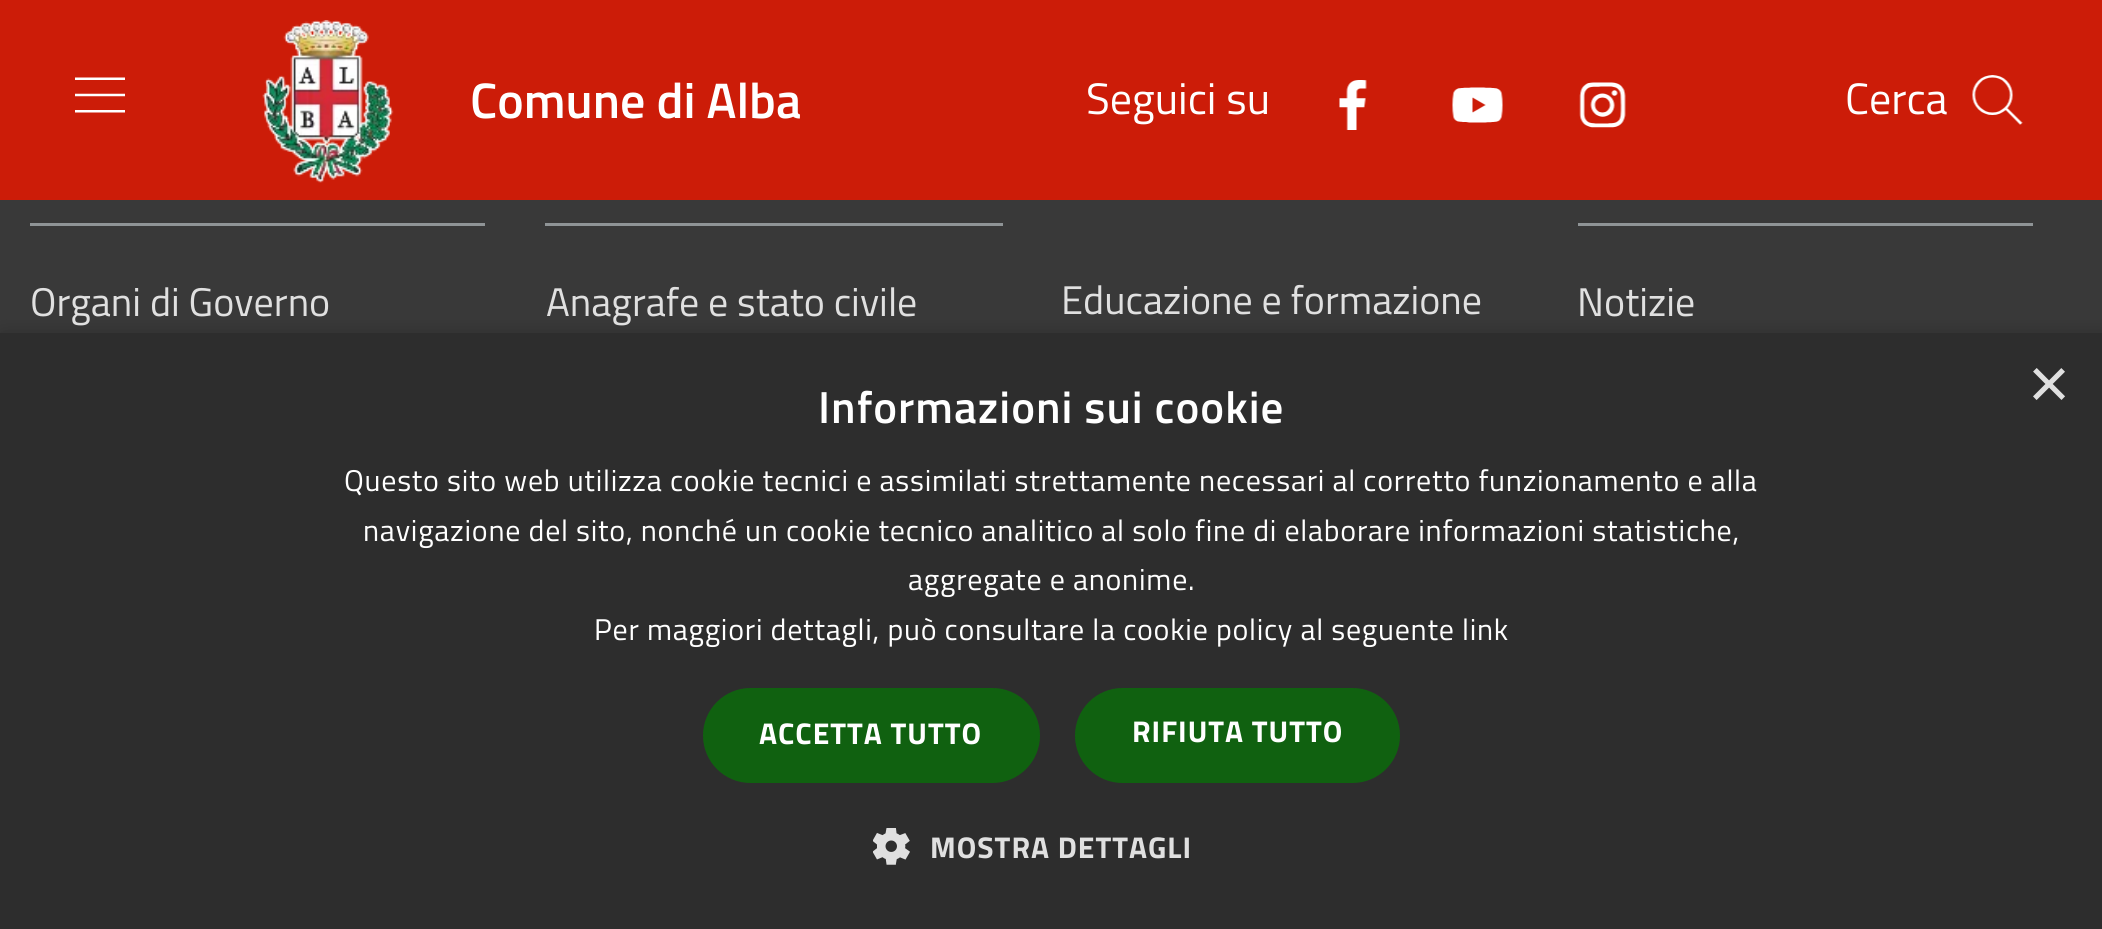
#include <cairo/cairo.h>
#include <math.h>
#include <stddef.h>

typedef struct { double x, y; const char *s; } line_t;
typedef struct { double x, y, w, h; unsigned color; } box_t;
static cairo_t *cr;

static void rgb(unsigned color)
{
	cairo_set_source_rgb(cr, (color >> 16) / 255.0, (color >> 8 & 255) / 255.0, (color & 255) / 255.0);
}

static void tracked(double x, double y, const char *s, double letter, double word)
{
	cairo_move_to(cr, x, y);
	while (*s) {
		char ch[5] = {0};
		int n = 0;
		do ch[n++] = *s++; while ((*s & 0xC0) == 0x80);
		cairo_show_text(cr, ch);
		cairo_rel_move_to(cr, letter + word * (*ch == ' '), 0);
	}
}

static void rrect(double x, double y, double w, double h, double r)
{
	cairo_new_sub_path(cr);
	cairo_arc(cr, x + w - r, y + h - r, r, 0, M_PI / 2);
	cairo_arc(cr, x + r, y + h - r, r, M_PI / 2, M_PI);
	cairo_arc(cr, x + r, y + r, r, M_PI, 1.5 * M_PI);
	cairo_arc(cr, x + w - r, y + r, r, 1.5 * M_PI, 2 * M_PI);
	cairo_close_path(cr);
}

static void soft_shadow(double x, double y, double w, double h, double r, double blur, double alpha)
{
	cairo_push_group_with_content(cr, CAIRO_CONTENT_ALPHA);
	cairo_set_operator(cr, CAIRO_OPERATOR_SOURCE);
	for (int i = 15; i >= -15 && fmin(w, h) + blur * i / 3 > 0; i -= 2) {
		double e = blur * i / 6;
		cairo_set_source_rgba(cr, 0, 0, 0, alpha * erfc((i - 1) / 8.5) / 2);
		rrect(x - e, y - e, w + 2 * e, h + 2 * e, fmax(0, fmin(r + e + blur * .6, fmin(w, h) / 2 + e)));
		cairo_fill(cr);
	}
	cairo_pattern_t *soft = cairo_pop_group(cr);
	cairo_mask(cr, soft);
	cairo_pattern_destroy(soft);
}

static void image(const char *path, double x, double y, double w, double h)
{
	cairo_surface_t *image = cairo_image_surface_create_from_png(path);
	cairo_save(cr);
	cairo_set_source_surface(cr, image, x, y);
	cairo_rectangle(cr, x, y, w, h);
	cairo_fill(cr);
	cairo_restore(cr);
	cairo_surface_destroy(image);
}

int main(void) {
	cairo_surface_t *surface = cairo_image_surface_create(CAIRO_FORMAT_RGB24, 2102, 929);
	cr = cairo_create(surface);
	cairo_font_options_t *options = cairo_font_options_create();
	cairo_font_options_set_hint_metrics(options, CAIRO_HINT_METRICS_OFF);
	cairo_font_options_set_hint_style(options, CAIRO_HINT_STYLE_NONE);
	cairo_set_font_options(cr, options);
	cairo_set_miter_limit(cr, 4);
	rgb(0x393939);
	cairo_paint(cr);
	rgb(0xcc1c08);
	cairo_rectangle(cr, 0, 0, 2102, 200);
	cairo_fill(cr);
	image("img/1.png", 75, 77, 50, 36);
	image("img/2.png", 262, 20, 132, 163);
	image("img/3.png", 1339, 80, 28, 50);
	image("img/4.png", 1452, 87, 51, 36);
	image("img/5.png", 1579, 82, 47, 46);
	image("img/6.png", 1972, 75, 51, 50);
	{
		static const box_t items[] = {
			{30, 223, 455, 3, 0x8f9496},
			{545, 223, 458, 3, 0x8f9496},
			{1578, 223, 455, 3, 0x8f9496},
		};
		for (size_t i = 0; i < sizeof items / sizeof *items; i++) {
			rgb(items[i].color);
			cairo_rectangle(cr, items[i].x, items[i].y, items[i].w, items[i].h);
			cairo_fill(cr);
		}
	}
	rgb(0x000000);
	soft_shadow(3, 338, 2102, 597, 0, 10, 0.35);
	rgb(0x2d2d2d);
	cairo_rectangle(cr, 0, 333, 2102, 596);
	cairo_fill(cr);
	rgb(0x106110);
	rrect(703, 688, 337, 95, 47.5);
	cairo_fill(cr);
	rrect(1075, 688, 325, 95, 47.5);
	cairo_fill(cr);
	image("img/7.png", 873, 828, 37, 37);
	cairo_select_font_face(cr, "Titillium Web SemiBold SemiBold", CAIRO_FONT_SLANT_NORMAL, CAIRO_FONT_WEIGHT_NORMAL);
	cairo_set_font_size(cr, 50);
	rgb(0xffffff);
	cairo_move_to(cr, 470, 118);
	cairo_show_text(cr, "Comune di Alba");
	cairo_select_font_face(cr, "Titillium Web", CAIRO_FONT_SLANT_NORMAL, CAIRO_FONT_WEIGHT_NORMAL);
	cairo_set_font_size(cr, 44);
	cairo_move_to(cr, 1086, 114);
	cairo_show_text(cr, "Seguici su");
	cairo_move_to(cr, 1845, 114);
	cairo_show_text(cr, "Cerca");
	cairo_set_font_size(cr, 40);
	rgb(0xe0e0e0);
	{
		static const line_t items[] = {
			{30, 316, "Organi di Governo"},
			{546, 316, "Anagrafe e stato civile"},
			{1061, 314, "Educazione e formazione"},
			{1577, 316, "Notizie"},
		};
		for (size_t i = 0; i < sizeof items / sizeof *items; i++) {
			cairo_move_to(cr, items[i].x, items[i].y);
			cairo_show_text(cr, items[i].s);
		}
	}
	cairo_select_font_face(cr, "Liberation Sans", CAIRO_FONT_SLANT_NORMAL, CAIRO_FONT_WEIGHT_NORMAL);
	cairo_set_font_size(cr, 72);
	cairo_move_to(cr, 2028, 408);
	cairo_show_text(cr, "×");
	cairo_select_font_face(cr, "Titillium Web SemiBold SemiBold", CAIRO_FONT_SLANT_NORMAL, CAIRO_FONT_WEIGHT_NORMAL);
	cairo_set_font_size(cr, 45);
	rgb(0xffffff);
	tracked(818, 423, "Informazioni sui cookie", 1, 0);
	cairo_select_font_face(cr, "Titillium Web", CAIRO_FONT_SLANT_NORMAL, CAIRO_FONT_WEIGHT_NORMAL);
	cairo_set_font_size(cr, 30);
	{
		static const line_t items[] = {
			{344, 491, "Questo sito web utilizza cookie tecnici e assimilati strettamente necessari al corretto funzionamento e alla"},
			{363, 541, "navigazione del sito, nonché un cookie tecnico analitico al solo fine di elaborare informazioni statistiche,"},
			{908, 590, "aggregate e anonime."},
			{594, 640, "Per maggiori dettagli, può consultare la cookie policy al seguente link"},
		};
		for (size_t i = 0; i < sizeof items / sizeof *items; i++) {
			tracked(items[i].x, items[i].y, items[i].s, 0.75, 0);
		}
	}
	cairo_select_font_face(cr, "Titillium Web", CAIRO_FONT_SLANT_NORMAL, CAIRO_FONT_WEIGHT_BOLD);
	tracked(759, 744, "ACCETTA TUTTO", 1, 0);
	tracked(1132, 742, "RIFIUTA TUTTO", 1, 0);
	rgb(0xe0e0e0);
	tracked(930, 858, "MOSTRA DETTAGLI", 1, 0);
	cairo_surface_write_to_png(surface, "page.png");
	cairo_font_options_destroy(options);
	cairo_destroy(cr);
	cairo_surface_destroy(surface);
	return 0;
}
